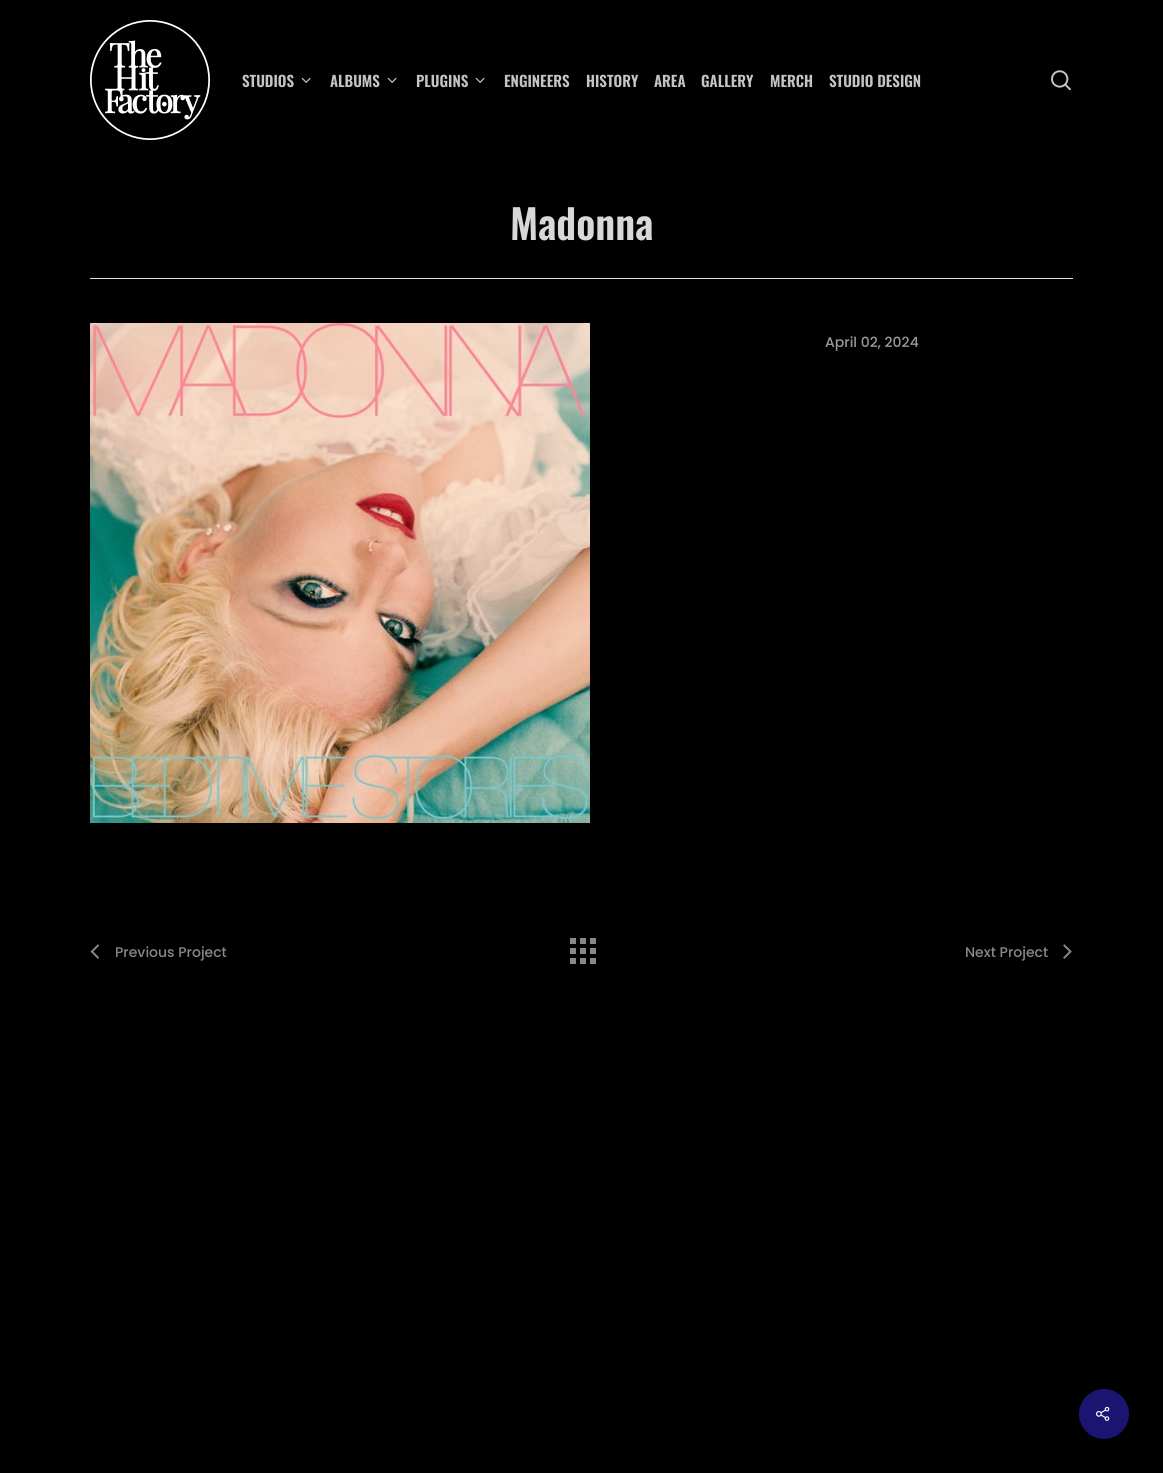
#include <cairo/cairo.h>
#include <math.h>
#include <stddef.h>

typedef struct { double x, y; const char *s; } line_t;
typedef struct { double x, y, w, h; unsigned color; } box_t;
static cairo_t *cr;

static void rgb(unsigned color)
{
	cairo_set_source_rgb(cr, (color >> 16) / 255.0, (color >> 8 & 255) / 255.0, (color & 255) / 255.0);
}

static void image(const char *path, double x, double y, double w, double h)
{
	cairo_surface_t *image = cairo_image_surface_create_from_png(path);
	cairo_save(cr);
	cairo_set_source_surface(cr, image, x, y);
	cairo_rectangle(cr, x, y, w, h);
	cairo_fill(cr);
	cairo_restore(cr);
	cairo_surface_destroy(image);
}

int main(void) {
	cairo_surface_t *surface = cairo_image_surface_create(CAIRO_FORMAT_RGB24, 1163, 1473);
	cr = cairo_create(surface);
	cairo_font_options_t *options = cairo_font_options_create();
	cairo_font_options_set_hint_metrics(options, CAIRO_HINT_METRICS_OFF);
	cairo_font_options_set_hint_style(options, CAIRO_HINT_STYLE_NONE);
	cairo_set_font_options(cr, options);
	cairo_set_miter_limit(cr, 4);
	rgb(0x000000);
	cairo_paint(cr);
	image("img/1.png", 90, 20, 120, 120);
	image("img/2.png", 301, 77, 10, 6);
	image("img/2.png", 387, 77, 10, 6);
	image("img/2.png", 475, 77, 10, 6);
	image("img/3.png", 1051, 70, 20, 21);
	rgb(0xdddddd);
	cairo_rectangle(cr, 90, 278, 983, 1);
	cairo_fill(cr);
	image("img/4.png", 90, 323, 500, 500);
	{
		static const box_t items[] = {
			{590, 958, 6, 6, 0x888888},
			{580, 958, 6, 6, 0x888888},
			{570, 938, 6, 6, 0x888888},
			{580, 938, 6, 6, 0x888888},
			{590, 938, 6, 6, 0x888888},
			{590, 948, 6, 6, 0x888888},
			{570, 958, 6, 6, 0x888888},
			{570, 948, 6, 6, 0x888888},
			{580, 948, 6, 6, 0x888888},
		};
		for (size_t i = 0; i < sizeof items / sizeof *items; i++) {
			rgb(items[i].color);
			cairo_rectangle(cr, items[i].x, items[i].y, items[i].w, items[i].h);
			cairo_fill(cr);
		}
	}
	image("img/5.png", 90, 944, 9, 15);
	image("img/6.png", 1063, 944, 9, 15);
	rgb(0x1b1470);
	cairo_arc(cr, 1104, 1414, 25, 0, 2 * M_PI);
	cairo_fill(cr);
	image("img/7.png", 1096, 1406, 14, 15);
	cairo_select_font_face(cr, "Oswald SemiBold", CAIRO_FONT_SLANT_NORMAL, CAIRO_FONT_WEIGHT_NORMAL);
	cairo_set_font_size(cr, 15);
	rgb(0xc4c4c4);
	{
		static const line_t items[] = {
			{242, 87, "STUDIOS"},
			{330, 87, "ALBUMS"},
			{416, 87, "PLUGINS"},
			{504, 87, "ENGINEERS"},
			{586, 87, "HISTORY"},
			{654, 87, "AREA"},
			{701, 87, "GALLERY"},
			{770, 87, "MERCH"},
			{829, 87, "STUDIO DESIGN"},
		};
		for (size_t i = 0; i < sizeof items / sizeof *items; i++) {
			cairo_move_to(cr, items[i].x, items[i].y);
			cairo_show_text(cr, items[i].s);
		}
	}
	cairo_set_font_size(cr, 40.5);
	rgb(0xd8d8d8);
	cairo_move_to(cr, 510, 240);
	cairo_show_text(cr, "Madonna");
	cairo_select_font_face(cr, "Poppins Medium", CAIRO_FONT_SLANT_NORMAL, CAIRO_FONT_WEIGHT_NORMAL);
	cairo_set_font_size(cr, 14);
	rgb(0x999999);
	cairo_move_to(cr, 825, 347);
	cairo_show_text(cr, "April 02, 2024");
	rgb(0x888888);
	cairo_move_to(cr, 115, 957);
	cairo_show_text(cr, "Previous Project");
	cairo_move_to(cr, 965, 957);
	cairo_show_text(cr, "Next Project");
	cairo_surface_write_to_png(surface, "page.png");
	cairo_font_options_destroy(options);
	cairo_destroy(cr);
	cairo_surface_destroy(surface);
	return 0;
}
